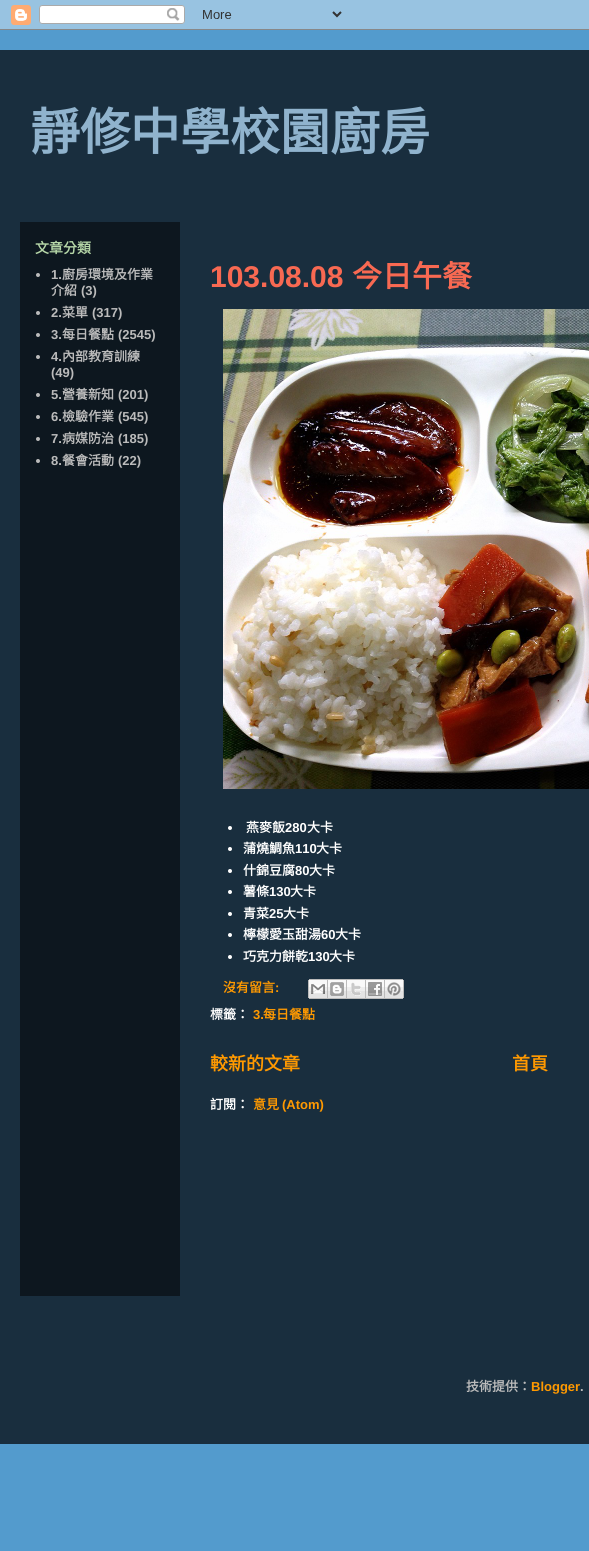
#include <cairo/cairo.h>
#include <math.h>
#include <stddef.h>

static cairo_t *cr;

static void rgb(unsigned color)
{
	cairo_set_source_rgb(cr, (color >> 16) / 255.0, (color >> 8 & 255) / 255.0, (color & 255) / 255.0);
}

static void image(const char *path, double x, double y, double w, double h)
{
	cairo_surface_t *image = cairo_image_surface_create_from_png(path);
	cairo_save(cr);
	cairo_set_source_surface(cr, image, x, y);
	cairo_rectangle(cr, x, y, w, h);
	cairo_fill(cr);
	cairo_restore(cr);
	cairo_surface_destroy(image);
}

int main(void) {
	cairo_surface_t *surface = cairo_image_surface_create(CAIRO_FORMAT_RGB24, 589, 1551);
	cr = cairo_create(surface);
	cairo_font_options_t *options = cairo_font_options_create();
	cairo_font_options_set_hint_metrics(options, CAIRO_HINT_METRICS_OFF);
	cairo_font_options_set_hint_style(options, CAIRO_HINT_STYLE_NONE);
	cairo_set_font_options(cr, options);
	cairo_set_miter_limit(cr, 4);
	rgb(0x539bcd);
	cairo_paint(cr);
	image("img/1.png", 0, 0, 589, 30);
	rgb(0x192e3e);
	cairo_rectangle(cr, 0, 50, 589, 1394);
	cairo_fill(cr);
	rgb(0x0d171f);
	cairo_rectangle(cr, 20, 222, 160, 1074);
	cairo_fill(cr);
	rgb(0xbbbbbb);
	cairo_arc(cr, 38, 275, 2, 0, 2 * M_PI);
	cairo_fill(cr);
	cairo_arc(cr, 38, 313, 2, 0, 2 * M_PI);
	cairo_fill(cr);
	cairo_arc(cr, 38, 335, 2, 0, 2 * M_PI);
	cairo_fill(cr);
	cairo_arc(cr, 38, 357, 2, 0, 2 * M_PI);
	cairo_fill(cr);
	cairo_arc(cr, 38, 395, 2, 0, 2 * M_PI);
	cairo_fill(cr);
	cairo_arc(cr, 38, 417, 2, 0, 2 * M_PI);
	cairo_fill(cr);
	cairo_arc(cr, 38, 439, 2, 0, 2 * M_PI);
	cairo_fill(cr);
	cairo_arc(cr, 38, 461, 2, 0, 2 * M_PI);
	cairo_fill(cr);
	image("img/2.png", 223, 309, 366, 480);
	rgb(0xffffff);
	cairo_arc(cr, 230, 828, 2, 0, 2 * M_PI);
	cairo_fill(cr);
	cairo_arc(cr, 230, 849, 2, 0, 2 * M_PI);
	cairo_fill(cr);
	cairo_arc(cr, 230, 871, 2, 0, 2 * M_PI);
	cairo_fill(cr);
	cairo_arc(cr, 230, 892, 2, 0, 2 * M_PI);
	cairo_fill(cr);
	cairo_arc(cr, 230, 914, 2, 0, 2 * M_PI);
	cairo_fill(cr);
	cairo_arc(cr, 230, 935, 2, 0, 2 * M_PI);
	cairo_fill(cr);
	cairo_arc(cr, 230, 957, 2, 0, 2 * M_PI);
	cairo_fill(cr);
	image("img/3.png", 308, 979, 20, 20);
	image("img/4.png", 328, 979, 19, 20);
	image("img/5.png", 347, 979, 19, 20);
	image("img/6.png", 366, 979, 19, 20);
	image("img/7.png", 385, 979, 19, 20);
	cairo_select_font_face(cr, "Noto Sans CJK TC", CAIRO_FONT_SLANT_NORMAL, CAIRO_FONT_WEIGHT_BOLD);
	cairo_set_font_size(cr, 50);
	rgb(0x90b3cd);
	cairo_move_to(cr, 30, 150);
	cairo_show_text(cr, "靜修中學校園廚房");
	cairo_set_font_size(cr, 14);
	rgb(0xb6d7a8);
	cairo_move_to(cr, 35, 253);
	cairo_show_text(cr, "文章分類");
	cairo_select_font_face(cr, "Liberation Sans", CAIRO_FONT_SLANT_NORMAL, CAIRO_FONT_WEIGHT_BOLD);
	cairo_set_font_size(cr, 13);
	rgb(0xbbbbbb);
	cairo_move_to(cr, 51, 279);
	cairo_show_text(cr, "1.");
	cairo_select_font_face(cr, "Noto Sans CJK TC", CAIRO_FONT_SLANT_NORMAL, CAIRO_FONT_WEIGHT_BOLD);
	cairo_move_to(cr, 62, 279);
	cairo_show_text(cr, "廚房環境及作業");
	cairo_move_to(cr, 51, 295);
	cairo_show_text(cr, "介紹");
	cairo_select_font_face(cr, "Liberation Sans", CAIRO_FONT_SLANT_NORMAL, CAIRO_FONT_WEIGHT_BOLD);
	cairo_move_to(cr, 81, 295);
	cairo_show_text(cr, "(3)");
	cairo_move_to(cr, 51, 317);
	cairo_show_text(cr, "2.");
	cairo_select_font_face(cr, "Noto Sans CJK TC", CAIRO_FONT_SLANT_NORMAL, CAIRO_FONT_WEIGHT_BOLD);
	cairo_move_to(cr, 62, 317);
	cairo_show_text(cr, "菜單");
	cairo_select_font_face(cr, "Liberation Sans", CAIRO_FONT_SLANT_NORMAL, CAIRO_FONT_WEIGHT_BOLD);
	cairo_move_to(cr, 92, 317);
	cairo_show_text(cr, "(317)");
	cairo_move_to(cr, 51, 339);
	cairo_show_text(cr, "3.");
	cairo_select_font_face(cr, "Noto Sans CJK TC", CAIRO_FONT_SLANT_NORMAL, CAIRO_FONT_WEIGHT_BOLD);
	cairo_move_to(cr, 62, 339);
	cairo_show_text(cr, "每日餐點");
	cairo_select_font_face(cr, "Liberation Sans", CAIRO_FONT_SLANT_NORMAL, CAIRO_FONT_WEIGHT_BOLD);
	cairo_move_to(cr, 118, 339);
	cairo_show_text(cr, "(2545)");
	cairo_move_to(cr, 51, 361);
	cairo_show_text(cr, "4.");
	cairo_select_font_face(cr, "Noto Sans CJK TC", CAIRO_FONT_SLANT_NORMAL, CAIRO_FONT_WEIGHT_BOLD);
	cairo_move_to(cr, 62, 361);
	cairo_show_text(cr, "內部教育訓練");
	cairo_select_font_face(cr, "Liberation Sans", CAIRO_FONT_SLANT_NORMAL, CAIRO_FONT_WEIGHT_BOLD);
	cairo_move_to(cr, 51, 377);
	cairo_show_text(cr, "(49)");
	cairo_move_to(cr, 51, 399);
	cairo_show_text(cr, "5.");
	cairo_select_font_face(cr, "Noto Sans CJK TC", CAIRO_FONT_SLANT_NORMAL, CAIRO_FONT_WEIGHT_BOLD);
	cairo_move_to(cr, 62, 399);
	cairo_show_text(cr, "營養新知");
	cairo_select_font_face(cr, "Liberation Sans", CAIRO_FONT_SLANT_NORMAL, CAIRO_FONT_WEIGHT_BOLD);
	cairo_move_to(cr, 118, 399);
	cairo_show_text(cr, "(201)");
	cairo_move_to(cr, 51, 421);
	cairo_show_text(cr, "6.");
	cairo_select_font_face(cr, "Noto Sans CJK TC", CAIRO_FONT_SLANT_NORMAL, CAIRO_FONT_WEIGHT_BOLD);
	cairo_move_to(cr, 62, 421);
	cairo_show_text(cr, "檢驗作業");
	cairo_select_font_face(cr, "Liberation Sans", CAIRO_FONT_SLANT_NORMAL, CAIRO_FONT_WEIGHT_BOLD);
	cairo_move_to(cr, 118, 421);
	cairo_show_text(cr, "(545)");
	cairo_move_to(cr, 51, 443);
	cairo_show_text(cr, "7.");
	cairo_select_font_face(cr, "Noto Sans CJK TC", CAIRO_FONT_SLANT_NORMAL, CAIRO_FONT_WEIGHT_BOLD);
	cairo_move_to(cr, 62, 443);
	cairo_show_text(cr, "病媒防治");
	cairo_select_font_face(cr, "Liberation Sans", CAIRO_FONT_SLANT_NORMAL, CAIRO_FONT_WEIGHT_BOLD);
	cairo_move_to(cr, 118, 443);
	cairo_show_text(cr, "(185)");
	cairo_move_to(cr, 51, 465);
	cairo_show_text(cr, "8.");
	cairo_select_font_face(cr, "Noto Sans CJK TC", CAIRO_FONT_SLANT_NORMAL, CAIRO_FONT_WEIGHT_BOLD);
	cairo_move_to(cr, 62, 465);
	cairo_show_text(cr, "餐會活動");
	cairo_select_font_face(cr, "Liberation Sans", CAIRO_FONT_SLANT_NORMAL, CAIRO_FONT_WEIGHT_BOLD);
	cairo_move_to(cr, 118, 465);
	cairo_show_text(cr, "(22)");
	cairo_set_font_size(cr, 30);
	rgb(0xf86952);
	cairo_move_to(cr, 210, 287);
	cairo_show_text(cr, "103.08.08");
	cairo_select_font_face(cr, "Noto Sans CJK TC", CAIRO_FONT_SLANT_NORMAL, CAIRO_FONT_WEIGHT_BOLD);
	cairo_move_to(cr, 352, 287);
	cairo_show_text(cr, "今日午餐");
	cairo_set_font_size(cr, 13);
	rgb(0xffffff);
	cairo_move_to(cr, 246, 832);
	cairo_show_text(cr, "燕麥飯");
	cairo_select_font_face(cr, "Liberation Sans", CAIRO_FONT_SLANT_NORMAL, CAIRO_FONT_WEIGHT_BOLD);
	cairo_move_to(cr, 285, 832);
	cairo_show_text(cr, "280");
	cairo_select_font_face(cr, "Noto Sans CJK TC", CAIRO_FONT_SLANT_NORMAL, CAIRO_FONT_WEIGHT_BOLD);
	cairo_move_to(cr, 307, 832);
	cairo_show_text(cr, "大卡");
	cairo_move_to(cr, 243, 853);
	cairo_show_text(cr, "蒲燒鯛魚");
	cairo_select_font_face(cr, "Liberation Sans", CAIRO_FONT_SLANT_NORMAL, CAIRO_FONT_WEIGHT_BOLD);
	cairo_move_to(cr, 295, 853);
	cairo_show_text(cr, "110");
	cairo_select_font_face(cr, "Noto Sans CJK TC", CAIRO_FONT_SLANT_NORMAL, CAIRO_FONT_WEIGHT_BOLD);
	cairo_move_to(cr, 316, 853);
	cairo_show_text(cr, "大卡");
	cairo_move_to(cr, 243, 875);
	cairo_show_text(cr, "什錦豆腐");
	cairo_select_font_face(cr, "Liberation Sans", CAIRO_FONT_SLANT_NORMAL, CAIRO_FONT_WEIGHT_BOLD);
	cairo_move_to(cr, 295, 875);
	cairo_show_text(cr, "80");
	cairo_select_font_face(cr, "Noto Sans CJK TC", CAIRO_FONT_SLANT_NORMAL, CAIRO_FONT_WEIGHT_BOLD);
	cairo_move_to(cr, 309, 875);
	cairo_show_text(cr, "大卡");
	cairo_move_to(cr, 243, 896);
	cairo_show_text(cr, "薯條");
	cairo_select_font_face(cr, "Liberation Sans", CAIRO_FONT_SLANT_NORMAL, CAIRO_FONT_WEIGHT_BOLD);
	cairo_move_to(cr, 269, 896);
	cairo_show_text(cr, "130");
	cairo_select_font_face(cr, "Noto Sans CJK TC", CAIRO_FONT_SLANT_NORMAL, CAIRO_FONT_WEIGHT_BOLD);
	cairo_move_to(cr, 290, 896);
	cairo_show_text(cr, "大卡");
	cairo_move_to(cr, 243, 918);
	cairo_show_text(cr, "青菜");
	cairo_select_font_face(cr, "Liberation Sans", CAIRO_FONT_SLANT_NORMAL, CAIRO_FONT_WEIGHT_BOLD);
	cairo_move_to(cr, 269, 918);
	cairo_show_text(cr, "25");
	cairo_select_font_face(cr, "Noto Sans CJK TC", CAIRO_FONT_SLANT_NORMAL, CAIRO_FONT_WEIGHT_BOLD);
	cairo_move_to(cr, 283, 918);
	cairo_show_text(cr, "大卡");
	cairo_move_to(cr, 243, 939);
	cairo_show_text(cr, "檸檬愛玉甜湯");
	cairo_select_font_face(cr, "Liberation Sans", CAIRO_FONT_SLANT_NORMAL, CAIRO_FONT_WEIGHT_BOLD);
	cairo_move_to(cr, 321, 939);
	cairo_show_text(cr, "60");
	cairo_select_font_face(cr, "Noto Sans CJK TC", CAIRO_FONT_SLANT_NORMAL, CAIRO_FONT_WEIGHT_BOLD);
	cairo_move_to(cr, 335, 939);
	cairo_show_text(cr, "大卡");
	cairo_move_to(cr, 243, 961);
	cairo_show_text(cr, "巧克力餅乾");
	cairo_select_font_face(cr, "Liberation Sans", CAIRO_FONT_SLANT_NORMAL, CAIRO_FONT_WEIGHT_BOLD);
	cairo_move_to(cr, 308, 961);
	cairo_show_text(cr, "130");
	cairo_select_font_face(cr, "Noto Sans CJK TC", CAIRO_FONT_SLANT_NORMAL, CAIRO_FONT_WEIGHT_BOLD);
	cairo_move_to(cr, 329, 961);
	cairo_show_text(cr, "大卡");
	rgb(0xff9900);
	cairo_move_to(cr, 223, 992);
	cairo_show_text(cr, "沒有留言");
	cairo_select_font_face(cr, "Liberation Sans", CAIRO_FONT_SLANT_NORMAL, CAIRO_FONT_WEIGHT_BOLD);
	cairo_move_to(cr, 275, 992);
	cairo_show_text(cr, ":");
	cairo_select_font_face(cr, "Noto Sans CJK TC", CAIRO_FONT_SLANT_NORMAL, CAIRO_FONT_WEIGHT_BOLD);
	rgb(0xffffff);
	cairo_move_to(cr, 210, 1019);
	cairo_show_text(cr, "標籤：");
	cairo_select_font_face(cr, "Liberation Sans", CAIRO_FONT_SLANT_NORMAL, CAIRO_FONT_WEIGHT_BOLD);
	rgb(0xff9900);
	cairo_move_to(cr, 253, 1019);
	cairo_show_text(cr, "3.");
	cairo_select_font_face(cr, "Noto Sans CJK TC", CAIRO_FONT_SLANT_NORMAL, CAIRO_FONT_WEIGHT_BOLD);
	cairo_move_to(cr, 263, 1019);
	cairo_show_text(cr, "每日餐點");
	cairo_set_font_size(cr, 18);
	cairo_move_to(cr, 210, 1070);
	cairo_show_text(cr, "較新的文章");
	cairo_move_to(cr, 512, 1070);
	cairo_show_text(cr, "首頁");
	cairo_set_font_size(cr, 13);
	rgb(0xffffff);
	cairo_move_to(cr, 210, 1109);
	cairo_show_text(cr, "訂閱：");
	rgb(0xff9900);
	cairo_move_to(cr, 253, 1109);
	cairo_show_text(cr, "意見");
	cairo_select_font_face(cr, "Liberation Sans", CAIRO_FONT_SLANT_NORMAL, CAIRO_FONT_WEIGHT_BOLD);
	cairo_move_to(cr, 282, 1109);
	cairo_show_text(cr, "(Atom)");
	cairo_select_font_face(cr, "Noto Sans CJK TC", CAIRO_FONT_SLANT_NORMAL, CAIRO_FONT_WEIGHT_BOLD);
	rgb(0xbbbbbb);
	cairo_move_to(cr, 466, 1391);
	cairo_show_text(cr, "技術提供：");
	cairo_select_font_face(cr, "Liberation Sans", CAIRO_FONT_SLANT_NORMAL, CAIRO_FONT_WEIGHT_BOLD);
	rgb(0xff9900);
	cairo_move_to(cr, 531, 1391);
	cairo_show_text(cr, "Blogger");
	rgb(0xbbbbbb);
	cairo_move_to(cr, 580, 1391);
	cairo_show_text(cr, ".");
	cairo_surface_write_to_png(surface, "page.png");
	cairo_font_options_destroy(options);
	cairo_destroy(cr);
	cairo_surface_destroy(surface);
	return 0;
}
